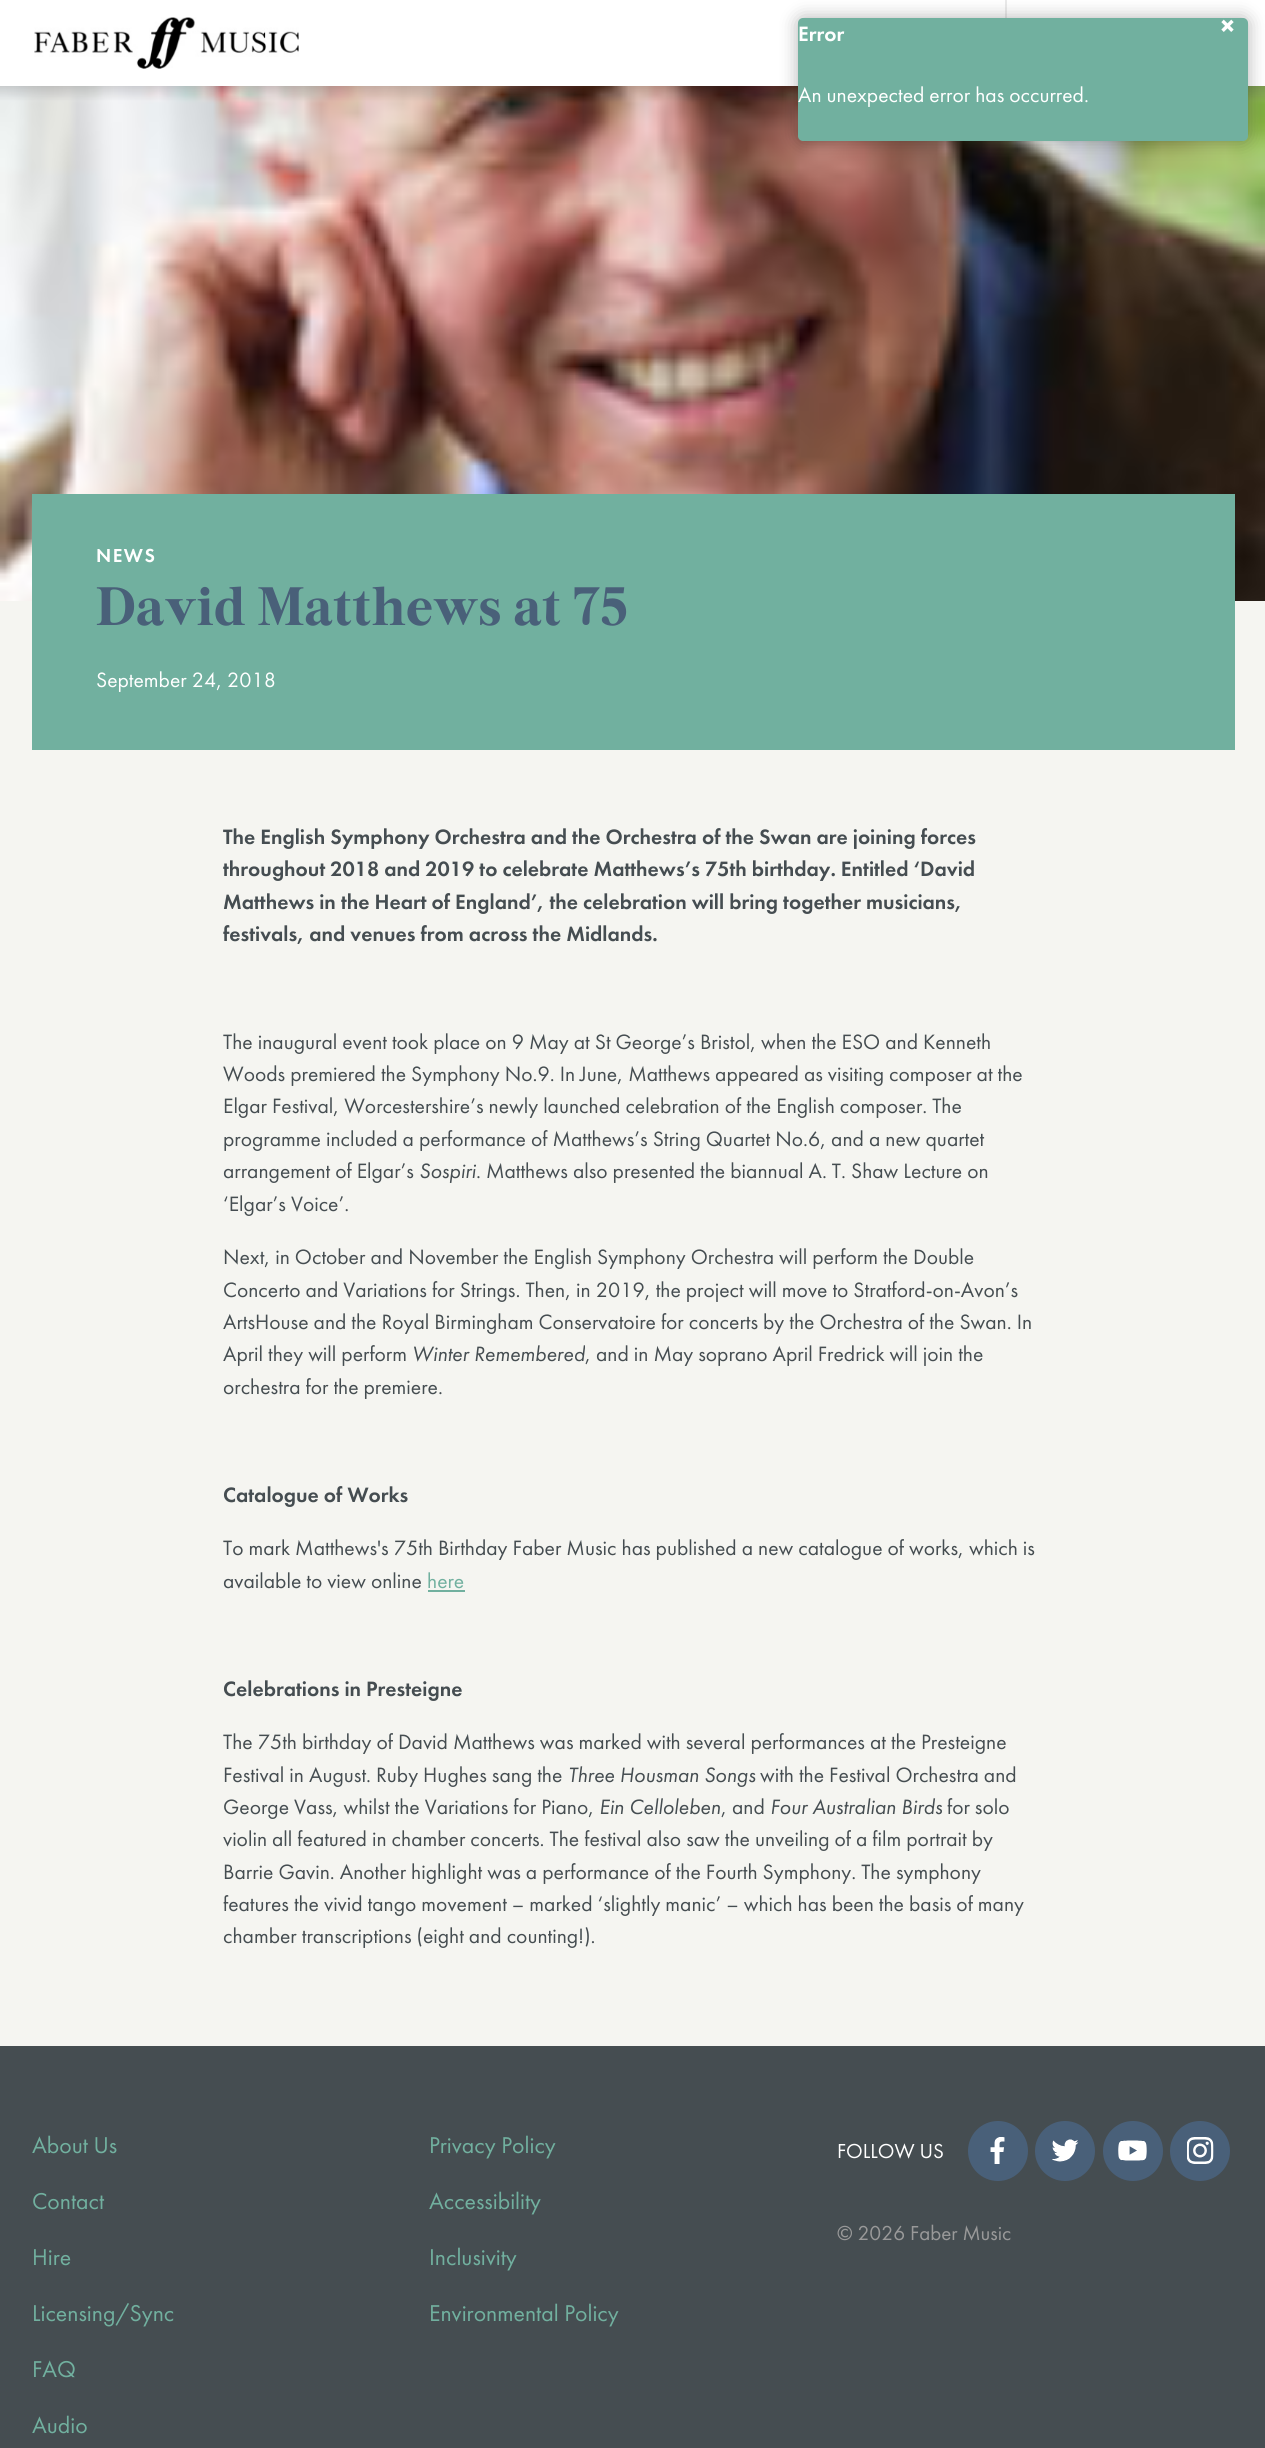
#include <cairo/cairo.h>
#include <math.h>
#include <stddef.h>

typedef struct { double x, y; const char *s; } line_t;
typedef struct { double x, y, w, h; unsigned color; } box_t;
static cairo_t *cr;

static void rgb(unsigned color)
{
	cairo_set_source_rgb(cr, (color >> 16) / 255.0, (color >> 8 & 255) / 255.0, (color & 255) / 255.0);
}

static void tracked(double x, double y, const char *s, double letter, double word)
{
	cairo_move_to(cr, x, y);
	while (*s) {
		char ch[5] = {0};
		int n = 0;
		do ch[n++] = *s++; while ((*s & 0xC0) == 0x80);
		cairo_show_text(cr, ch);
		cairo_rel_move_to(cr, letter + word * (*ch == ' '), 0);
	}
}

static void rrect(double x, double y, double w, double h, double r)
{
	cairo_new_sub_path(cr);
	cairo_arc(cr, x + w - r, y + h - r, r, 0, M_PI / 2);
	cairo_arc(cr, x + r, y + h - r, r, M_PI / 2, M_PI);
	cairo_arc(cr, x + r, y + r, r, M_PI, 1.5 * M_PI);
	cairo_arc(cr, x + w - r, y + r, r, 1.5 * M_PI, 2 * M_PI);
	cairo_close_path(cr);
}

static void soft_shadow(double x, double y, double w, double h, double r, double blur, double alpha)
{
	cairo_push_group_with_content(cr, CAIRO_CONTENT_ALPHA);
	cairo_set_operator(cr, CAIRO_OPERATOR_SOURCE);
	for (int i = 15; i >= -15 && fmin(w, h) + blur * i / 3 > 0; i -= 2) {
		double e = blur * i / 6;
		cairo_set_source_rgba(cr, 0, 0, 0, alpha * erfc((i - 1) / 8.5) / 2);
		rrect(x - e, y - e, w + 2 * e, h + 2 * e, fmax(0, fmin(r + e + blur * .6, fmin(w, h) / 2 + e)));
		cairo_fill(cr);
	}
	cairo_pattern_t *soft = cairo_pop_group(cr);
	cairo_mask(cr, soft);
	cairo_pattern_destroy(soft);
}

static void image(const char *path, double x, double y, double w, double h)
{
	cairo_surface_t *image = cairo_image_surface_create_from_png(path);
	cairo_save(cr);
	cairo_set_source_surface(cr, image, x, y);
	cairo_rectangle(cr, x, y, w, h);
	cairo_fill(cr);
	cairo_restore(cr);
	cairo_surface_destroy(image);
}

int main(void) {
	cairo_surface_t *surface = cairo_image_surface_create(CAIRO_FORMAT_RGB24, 1265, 2448);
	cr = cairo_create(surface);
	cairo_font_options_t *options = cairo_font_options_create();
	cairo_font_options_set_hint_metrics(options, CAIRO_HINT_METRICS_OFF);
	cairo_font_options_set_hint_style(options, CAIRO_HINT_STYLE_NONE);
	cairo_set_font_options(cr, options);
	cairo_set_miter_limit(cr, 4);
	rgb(0xf5f5f1);
	cairo_paint(cr);
	rgb(0xffffff);
	cairo_rectangle(cr, 0, 0, 1265, 86);
	cairo_fill(cr);
	rgb(0xeaeaea);
	cairo_rectangle(cr, 1005, 0, 2, 18);
	cairo_fill(cr);
	image("img/2.png", 0, 86, 1265, 515);
	rgb(0x000000);
	soft_shadow(798, 18, 450, 123, 5, 9, 0.3);
	rgb(0x71b09f);
	rrect(798, 18, 450, 123, 5);
	cairo_fill(cr);
	image("img/1.png", 34, 17, 265, 52);
	{
		static const box_t items[] = {
			{32, 494, 1203, 256, 0x71b09f},
			{428, 1590, 37, 2, 0x71b09f},
			{0, 2046, 1265, 402, 0x454d51},
		};
		for (size_t i = 0; i < sizeof items / sizeof *items; i++) {
			rgb(items[i].color);
			cairo_rectangle(cr, items[i].x, items[i].y, items[i].w, items[i].h);
			cairo_fill(cr);
		}
	}
	rgb(0x496079);
	cairo_arc(cr, 998, 2151, 30, 0, 2 * M_PI);
	cairo_fill(cr);
	image("img/3.png", 990, 2137, 15, 27);
	cairo_arc(cr, 1065, 2151, 30, 0, 2 * M_PI);
	cairo_fill(cr);
	image("img/4.png", 1052, 2139, 27, 23);
	cairo_arc(cr, 1133, 2151, 30, 0, 2 * M_PI);
	cairo_fill(cr);
	image("img/5.png", 1118, 2140, 29, 21);
	cairo_arc(cr, 1200, 2151, 30, 0, 2 * M_PI);
	cairo_fill(cr);
	image("img/6.png", 1187, 2137, 27, 27);
	cairo_select_font_face(cr, "Futura PT Medium", CAIRO_FONT_SLANT_NORMAL, CAIRO_FONT_WEIGHT_NORMAL);
	cairo_set_font_size(cr, 21.55);
	rgb(0xffffff);
	cairo_move_to(cr, 798, 41);
	cairo_show_text(cr, "Error");
	cairo_set_font_size(cr, 30);
	cairo_move_to(cr, 1220, 36);
	cairo_show_text(cr, "×");
	cairo_select_font_face(cr, "Futura PT", CAIRO_FONT_SLANT_NORMAL, CAIRO_FONT_WEIGHT_NORMAL);
	cairo_set_font_size(cr, 21.55);
	cairo_move_to(cr, 798, 102);
	cairo_show_text(cr, "An unexpected error has occurred.");
	cairo_select_font_face(cr, "Futura PT Medium", CAIRO_FONT_SLANT_NORMAL, CAIRO_FONT_WEIGHT_NORMAL);
	cairo_set_font_size(cr, 19.5);
	tracked(96, 562, "NEWS", 1.5, 0);
	cairo_select_font_face(cr, "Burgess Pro", CAIRO_FONT_SLANT_NORMAL, CAIRO_FONT_WEIGHT_BOLD);
	cairo_set_font_size(cr, 53.9);
	rgb(0x496079);
	cairo_move_to(cr, 96, 625);
	cairo_show_text(cr, "David Matthews at 75");
	cairo_select_font_face(cr, "Futura PT", CAIRO_FONT_SLANT_NORMAL, CAIRO_FONT_WEIGHT_NORMAL);
	cairo_set_font_size(cr, 21.55);
	rgb(0xffffff);
	cairo_move_to(cr, 96, 687);
	cairo_show_text(cr, "September 24, 2018");
	cairo_select_font_face(cr, "Futura PT Medium", CAIRO_FONT_SLANT_NORMAL, CAIRO_FONT_WEIGHT_NORMAL);
	rgb(0x454d51);
	{
		static const line_t items[] = {
			{223, 844, "The English Symphony Orchestra and the Orchestra of the Swan are joining forces"},
			{223, 876, "throughout 2018 and 2019 to celebrate Matthews’s 75th birthday. Entitled ‘David"},
			{223, 909, "Matthews in the Heart of England’, the celebration will bring together musicians,"},
			{223, 941, "festivals, and venues from across the Midlands."},
		};
		for (size_t i = 0; i < sizeof items / sizeof *items; i++) {
			cairo_move_to(cr, items[i].x, items[i].y);
			cairo_show_text(cr, items[i].s);
		}
	}
	cairo_select_font_face(cr, "Futura PT", CAIRO_FONT_SLANT_NORMAL, CAIRO_FONT_WEIGHT_NORMAL);
	{
		static const line_t items[] = {
			{223, 1049, "The inaugural event took place on 9 May at St George’s Bristol, when the ESO and Kenneth"},
			{223, 1081, "Woods premiered the Symphony No.9. In June, Matthews appeared as visiting composer at the"},
			{223, 1113, "Elgar Festival, Worcestershire’s newly launched celebration of the English composer. The"},
			{223, 1146, "programme included a performance of Matthews’s String Quartet No.6, and a new quartet"},
			{223, 1178, "arrangement of Elgar’s"},
		};
		for (size_t i = 0; i < sizeof items / sizeof *items; i++) {
			cairo_move_to(cr, items[i].x, items[i].y);
			cairo_show_text(cr, items[i].s);
		}
	}
	cairo_select_font_face(cr, "Futura PT", CAIRO_FONT_SLANT_ITALIC, CAIRO_FONT_WEIGHT_NORMAL);
	cairo_move_to(cr, 419, 1178);
	cairo_show_text(cr, "Sospiri");
	cairo_select_font_face(cr, "Futura PT", CAIRO_FONT_SLANT_NORMAL, CAIRO_FONT_WEIGHT_NORMAL);
	{
		static const line_t items[] = {
			{476, 1178, ". Matthews also presented the biannual A. T. Shaw Lecture on"},
			{223, 1211, "‘Elgar’s Voice’."},
			{223, 1264, "Next, in October and November the English Symphony Orchestra will perform the Double"},
			{223, 1297, "Concerto and Variations for Strings. Then, in 2019, the project will move to Stratford-on-Avon’s"},
			{223, 1329, "ArtsHouse and the Royal Birmingham Conservatoire for concerts by the Orchestra of the Swan. In"},
			{223, 1361, "April they will perform"},
		};
		for (size_t i = 0; i < sizeof items / sizeof *items; i++) {
			cairo_move_to(cr, items[i].x, items[i].y);
			cairo_show_text(cr, items[i].s);
		}
	}
	cairo_select_font_face(cr, "Futura PT", CAIRO_FONT_SLANT_ITALIC, CAIRO_FONT_WEIGHT_NORMAL);
	cairo_move_to(cr, 412, 1361);
	cairo_show_text(cr, "Winter Remembered");
	cairo_select_font_face(cr, "Futura PT", CAIRO_FONT_SLANT_NORMAL, CAIRO_FONT_WEIGHT_NORMAL);
	cairo_move_to(cr, 585, 1361);
	cairo_show_text(cr, ", and in May soprano April Fredrick will join the");
	cairo_move_to(cr, 223, 1394);
	cairo_show_text(cr, "orchestra for the premiere.");
	cairo_select_font_face(cr, "Futura PT Medium", CAIRO_FONT_SLANT_NORMAL, CAIRO_FONT_WEIGHT_NORMAL);
	cairo_move_to(cr, 223, 1502);
	cairo_show_text(cr, "Catalogue of Works");
	cairo_select_font_face(cr, "Futura PT", CAIRO_FONT_SLANT_NORMAL, CAIRO_FONT_WEIGHT_NORMAL);
	cairo_move_to(cr, 223, 1555);
	cairo_show_text(cr, "To mark Matthews's 75th Birthday Faber Music has published a new catalogue of works, which is");
	cairo_move_to(cr, 223, 1588);
	cairo_show_text(cr, "available to view online");
	rgb(0x71b09f);
	cairo_move_to(cr, 427, 1588);
	cairo_show_text(cr, "here");
	cairo_select_font_face(cr, "Futura PT Medium", CAIRO_FONT_SLANT_NORMAL, CAIRO_FONT_WEIGHT_NORMAL);
	rgb(0x454d51);
	cairo_move_to(cr, 223, 1696);
	cairo_show_text(cr, "Celebrations in Presteigne");
	cairo_select_font_face(cr, "Futura PT", CAIRO_FONT_SLANT_NORMAL, CAIRO_FONT_WEIGHT_NORMAL);
	cairo_move_to(cr, 223, 1749);
	cairo_show_text(cr, "The 75th birthday of David Matthews was marked with several performances at the Presteigne");
	cairo_move_to(cr, 223, 1782);
	cairo_show_text(cr, "Festival in August. Ruby Hughes sang the");
	cairo_select_font_face(cr, "Futura PT", CAIRO_FONT_SLANT_ITALIC, CAIRO_FONT_WEIGHT_NORMAL);
	cairo_move_to(cr, 568, 1782);
	cairo_show_text(cr, "Three Housman Songs");
	cairo_select_font_face(cr, "Futura PT", CAIRO_FONT_SLANT_NORMAL, CAIRO_FONT_WEIGHT_NORMAL);
	cairo_move_to(cr, 760, 1782);
	cairo_show_text(cr, "with the Festival Orchestra and");
	cairo_move_to(cr, 223, 1814);
	cairo_show_text(cr, "George Vass, whilst the Variations for Piano,");
	cairo_select_font_face(cr, "Futura PT", CAIRO_FONT_SLANT_ITALIC, CAIRO_FONT_WEIGHT_NORMAL);
	cairo_move_to(cr, 599, 1814);
	cairo_show_text(cr, "Ein Celloleben");
	cairo_select_font_face(cr, "Futura PT", CAIRO_FONT_SLANT_NORMAL, CAIRO_FONT_WEIGHT_NORMAL);
	cairo_move_to(cr, 721, 1814);
	cairo_show_text(cr, ", and");
	cairo_select_font_face(cr, "Futura PT", CAIRO_FONT_SLANT_ITALIC, CAIRO_FONT_WEIGHT_NORMAL);
	cairo_move_to(cr, 770, 1814);
	cairo_show_text(cr, "Four Australian Birds");
	cairo_select_font_face(cr, "Futura PT", CAIRO_FONT_SLANT_NORMAL, CAIRO_FONT_WEIGHT_NORMAL);
	{
		static const line_t items[] = {
			{947, 1814, "for solo"},
			{223, 1846, "violin all featured in chamber concerts. The festival also saw the unveiling of a film portrait by"},
			{223, 1879, "Barrie Gavin. Another highlight was a performance of the Fourth Symphony. The symphony"},
			{223, 1911, "features the vivid tango movement – marked ‘slightly manic’ – which has been the basis of many"},
			{223, 1943, "chamber transcriptions (eight and counting!)."},
		};
		for (size_t i = 0; i < sizeof items / sizeof *items; i++) {
			cairo_move_to(cr, items[i].x, items[i].y);
			cairo_show_text(cr, items[i].s);
		}
	}
	cairo_set_font_size(cr, 23.75);
	rgb(0x71b09f);
	{
		static const line_t items[] = {
			{32, 2153, "About Us"},
			{429, 2153, "Privacy Policy"},
			{32, 2209, "Contact"},
			{429, 2209, "Accessibility"},
			{32, 2265, "Hire"},
			{429, 2265, "Inclusivity"},
			{32, 2321, "Licensing/Sync"},
			{429, 2321, "Environmental Policy"},
			{32, 2377, "FAQ"},
			{32, 2433, "Audio"},
		};
		for (size_t i = 0; i < sizeof items / sizeof *items; i++) {
			cairo_move_to(cr, items[i].x, items[i].y);
			cairo_show_text(cr, items[i].s);
		}
	}
	cairo_set_font_size(cr, 21);
	rgb(0xffffff);
	cairo_move_to(cr, 837, 2158);
	cairo_show_text(cr, "FOLLOW US");
	rgb(0x999999);
	cairo_move_to(cr, 837, 2240);
	cairo_show_text(cr, "© 2026 Faber Music");
	cairo_surface_write_to_png(surface, "page.png");
	cairo_font_options_destroy(options);
	cairo_destroy(cr);
	cairo_surface_destroy(surface);
	return 0;
}
